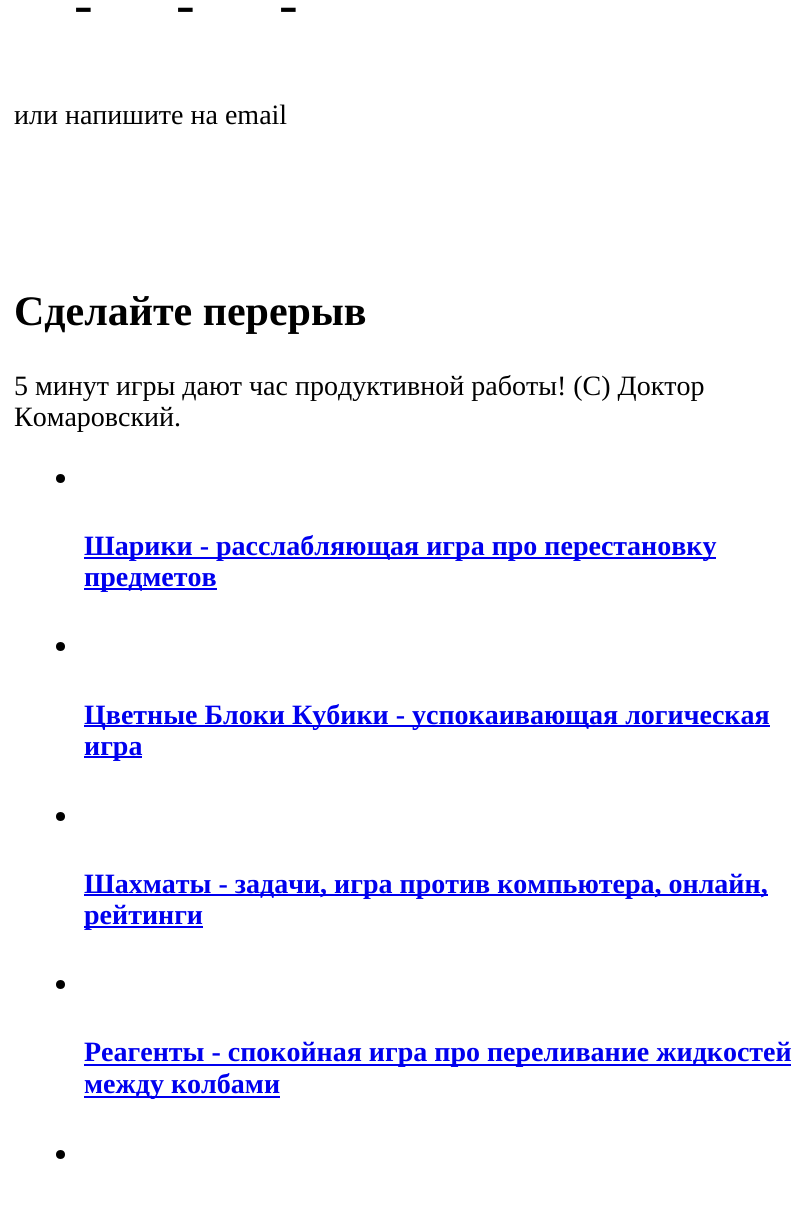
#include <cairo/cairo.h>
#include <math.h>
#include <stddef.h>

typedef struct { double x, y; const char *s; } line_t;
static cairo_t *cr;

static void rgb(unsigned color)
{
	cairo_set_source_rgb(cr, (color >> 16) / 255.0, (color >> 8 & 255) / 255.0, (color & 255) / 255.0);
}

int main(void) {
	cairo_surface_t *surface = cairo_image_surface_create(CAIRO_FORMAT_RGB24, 812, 1223);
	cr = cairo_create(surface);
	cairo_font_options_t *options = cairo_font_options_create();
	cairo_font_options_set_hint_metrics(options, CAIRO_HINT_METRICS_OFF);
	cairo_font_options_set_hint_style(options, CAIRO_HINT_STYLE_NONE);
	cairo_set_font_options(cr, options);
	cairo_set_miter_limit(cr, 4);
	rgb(0xffffff);
	cairo_paint(cr);
	rgb(0x000000);
	cairo_arc(cr, 60.5, 478.5, 4.5, 0, 2 * M_PI);
	cairo_fill(cr);
	rgb(0x0000ee);
	cairo_rectangle(cr, 84, 557, 632, 2);
	cairo_fill(cr);
	cairo_rectangle(cr, 84, 588, 133, 2);
	cairo_fill(cr);
	rgb(0x000000);
	cairo_arc(cr, 60.5, 646.5, 4.5, 0, 2 * M_PI);
	cairo_fill(cr);
	rgb(0x0000ee);
	cairo_rectangle(cr, 84, 725, 686, 2);
	cairo_fill(cr);
	cairo_rectangle(cr, 84, 756, 58, 2);
	cairo_fill(cr);
	rgb(0x000000);
	cairo_arc(cr, 60.5, 816.5, 4.5, 0, 2 * M_PI);
	cairo_fill(cr);
	rgb(0x0000ee);
	cairo_rectangle(cr, 84, 894, 684, 2);
	cairo_fill(cr);
	cairo_rectangle(cr, 84, 926, 119, 2);
	cairo_fill(cr);
	rgb(0x000000);
	cairo_arc(cr, 60.5, 984.5, 4.5, 0, 2 * M_PI);
	cairo_fill(cr);
	rgb(0x0000ee);
	cairo_rectangle(cr, 84, 1064, 707, 2);
	cairo_fill(cr);
	cairo_rectangle(cr, 84, 1096, 196, 2);
	cairo_fill(cr);
	rgb(0x000000);
	cairo_arc(cr, 60.5, 1154.5, 4.5, 0, 2 * M_PI);
	cairo_fill(cr);
	cairo_select_font_face(cr, "Liberation Serif", CAIRO_FONT_SLANT_NORMAL, CAIRO_FONT_WEIGHT_NORMAL);
	cairo_set_font_size(cr, 56);
	{
		static const line_t items[] = {
			{74, 23, "-"},
			{176, 23, "-"},
			{279, 23, "-"},
		};
		for (size_t i = 0; i < sizeof items / sizeof *items; i++) {
			cairo_move_to(cr, items[i].x, items[i].y);
			cairo_show_text(cr, items[i].s);
		}
	}
	cairo_set_font_size(cr, 28);
	cairo_move_to(cr, 14, 124);
	cairo_show_text(cr, "или напишите на email");
	cairo_select_font_face(cr, "Liberation Serif", CAIRO_FONT_SLANT_NORMAL, CAIRO_FONT_WEIGHT_BOLD);
	cairo_set_font_size(cr, 42);
	cairo_move_to(cr, 14, 325);
	cairo_show_text(cr, "Сделайте перерыв");
	cairo_select_font_face(cr, "Liberation Serif", CAIRO_FONT_SLANT_NORMAL, CAIRO_FONT_WEIGHT_NORMAL);
	cairo_set_font_size(cr, 28);
	cairo_move_to(cr, 14, 395);
	cairo_show_text(cr, "5 минут игры дают час продуктивной работы! (С) Доктор");
	cairo_move_to(cr, 14, 426);
	cairo_show_text(cr, "Комаровский.");
	cairo_select_font_face(cr, "Liberation Serif", CAIRO_FONT_SLANT_NORMAL, CAIRO_FONT_WEIGHT_BOLD);
	rgb(0x0000ee);
	{
		static const line_t items[] = {
			{84, 555, "Шарики - расслабляющая игра про перестановку"},
			{84, 586, "предметов"},
			{84, 724, "Цветные Блоки Кубики - успокаивающая логическая"},
			{84, 755, "игра"},
			{84, 893, "Шахматы - задачи, игра против компьютера, онлайн,"},
			{84, 924, "рейтинги"},
			{84, 1061, "Реагенты - спокойная игра про переливание жидкостей"},
			{84, 1093, "между колбами"},
		};
		for (size_t i = 0; i < sizeof items / sizeof *items; i++) {
			cairo_move_to(cr, items[i].x, items[i].y);
			cairo_show_text(cr, items[i].s);
		}
	}
	cairo_surface_write_to_png(surface, "page.png");
	cairo_font_options_destroy(options);
	cairo_destroy(cr);
	cairo_surface_destroy(surface);
	return 0;
}
